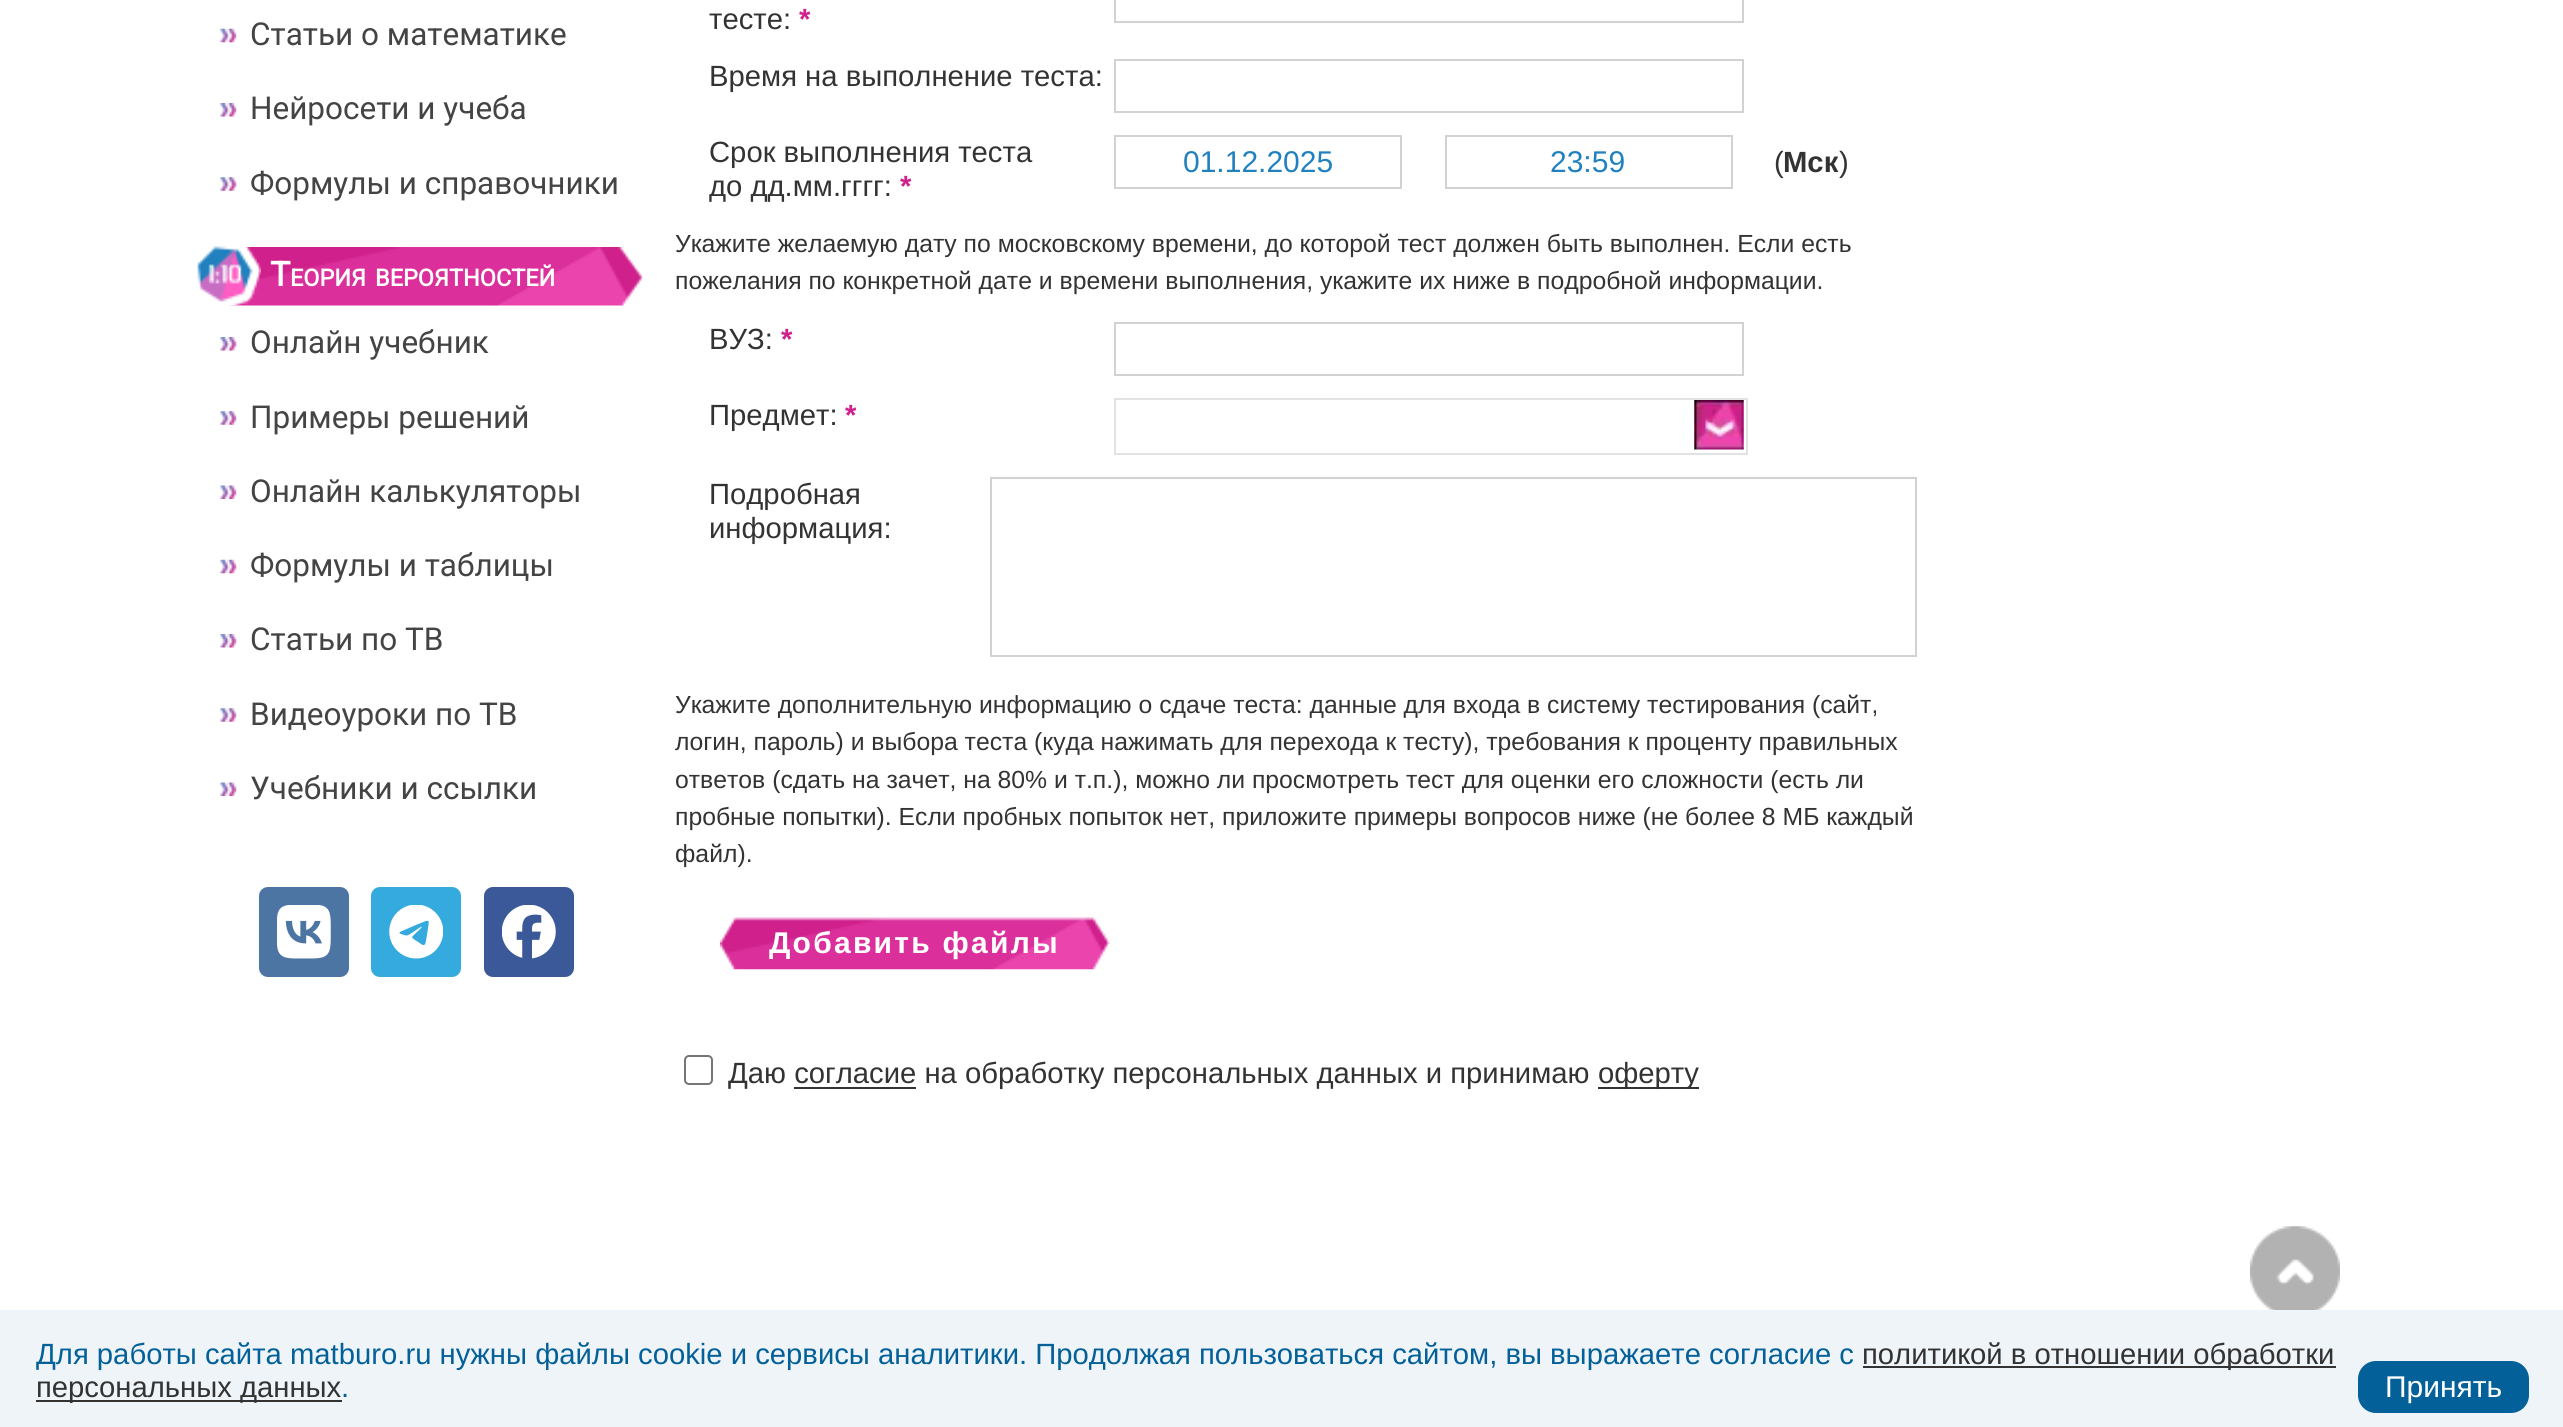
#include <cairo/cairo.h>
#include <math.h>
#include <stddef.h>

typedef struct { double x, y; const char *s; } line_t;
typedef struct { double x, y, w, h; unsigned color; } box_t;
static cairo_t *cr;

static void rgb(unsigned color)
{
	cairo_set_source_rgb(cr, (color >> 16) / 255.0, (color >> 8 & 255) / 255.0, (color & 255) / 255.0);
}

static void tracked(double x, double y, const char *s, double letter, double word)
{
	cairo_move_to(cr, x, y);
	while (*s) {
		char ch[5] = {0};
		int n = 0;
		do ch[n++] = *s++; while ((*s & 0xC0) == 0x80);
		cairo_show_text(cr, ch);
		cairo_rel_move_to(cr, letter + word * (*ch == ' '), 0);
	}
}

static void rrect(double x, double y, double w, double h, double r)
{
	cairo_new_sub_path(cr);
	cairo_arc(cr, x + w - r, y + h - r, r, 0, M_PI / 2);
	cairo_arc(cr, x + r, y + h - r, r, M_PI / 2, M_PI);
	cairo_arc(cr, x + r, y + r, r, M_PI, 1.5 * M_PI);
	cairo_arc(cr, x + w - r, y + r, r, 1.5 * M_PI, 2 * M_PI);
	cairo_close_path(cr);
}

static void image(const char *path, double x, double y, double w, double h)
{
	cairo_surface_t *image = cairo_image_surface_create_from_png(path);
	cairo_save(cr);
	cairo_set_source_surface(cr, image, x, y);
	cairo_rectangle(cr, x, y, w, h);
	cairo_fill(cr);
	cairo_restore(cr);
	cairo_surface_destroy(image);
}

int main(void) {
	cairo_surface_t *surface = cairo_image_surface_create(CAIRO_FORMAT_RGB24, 2563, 1427);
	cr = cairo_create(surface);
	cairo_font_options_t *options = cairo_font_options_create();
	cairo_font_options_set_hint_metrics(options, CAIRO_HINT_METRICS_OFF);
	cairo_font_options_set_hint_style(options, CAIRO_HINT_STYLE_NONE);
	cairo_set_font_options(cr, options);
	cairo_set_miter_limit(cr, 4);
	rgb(0xffffff);
	cairo_paint(cr);
	image("img/1.png", 220, 28, 17, 15);
	image("img/2.png", 220, 103, 17, 14);
	image("img/3.png", 220, 177, 17, 14);
	image("img/4.png", 226, 247, 418, 59);
	image("img/5.png", 197, 246, 64, 60);
	image("img/2.png", 220, 337, 17, 14);
	image("img/3.png", 220, 411, 17, 14);
	image("img/6.png", 220, 485, 17, 14);
	image("img/1.png", 220, 559, 17, 15);
	image("img/2.png", 220, 634, 17, 14);
	image("img/3.png", 220, 708, 17, 14);
	image("img/6.png", 220, 782, 17, 14);
	rgb(0x4c75a3);
	rrect(259, 887, 90, 90, 9);
	cairo_fill(cr);
	image("img/7.png", 277, 905, 54, 54);
	rgb(0x34aadf);
	rrect(371, 887, 90, 90, 9);
	cairo_fill(cr);
	image("img/8.png", 389, 905, 54, 54);
	rgb(0x3b5998);
	rrect(484, 887, 90, 90, 9);
	cairo_fill(cr);
	image("img/9.png", 502, 905, 54, 54);
	cairo_rectangle(cr, 1115, -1, 628, 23);
	rgb(0xd2d2d2);
	cairo_stroke(cr);
	cairo_rectangle(cr, 1115, 60, 628, 52);
	cairo_stroke(cr);
	cairo_rectangle(cr, 1115, 136, 286, 52);
	cairo_stroke(cr);
	cairo_rectangle(cr, 1446, 136, 286, 52);
	cairo_stroke(cr);
	cairo_rectangle(cr, 1115, 323, 628, 52);
	cairo_stroke(cr);
	cairo_rectangle(cr, 1115, 399, 632, 55);
	rgb(0xe2e2e2);
	cairo_stroke(cr);
	image("img/10.png", 1694, 400, 50, 50);
	cairo_rectangle(cr, 991, 478, 925, 178);
	rgb(0xd2d2d2);
	cairo_stroke(cr);
	image("img/11.png", 720, 917, 390, 53);
	rrect(685, 1056, 27, 28, 4);
	rgb(0x767676);
	cairo_stroke(cr);
	rgb(0x333333);
	cairo_rectangle(cr, 1598, 1087, 101, 2);
	cairo_fill(cr);
	cairo_rectangle(cr, 794, 1087, 122, 2);
	cairo_fill(cr);
	image("img/12.png", 2250, 1226, 90, 84);
	{
		static const box_t items[] = {
			{0, 1310, 2563, 117, 0xeff4f8},
			{1863, 1366, 473, 2, 0x333333},
			{36, 1400, 306, 2, 0x333333},
		};
		for (size_t i = 0; i < sizeof items / sizeof *items; i++) {
			rgb(items[i].color);
			cairo_rectangle(cr, items[i].x, items[i].y, items[i].w, items[i].h);
			cairo_fill(cr);
		}
	}
	rgb(0x036098);
	rrect(2358, 1361, 171, 52, 18);
	cairo_fill(cr);
	cairo_select_font_face(cr, "Roboto", CAIRO_FONT_SLANT_NORMAL, CAIRO_FONT_WEIGHT_NORMAL);
	cairo_set_font_size(cr, 31.5);
	rgb(0x444444);
	{
		static const line_t items[] = {
			{250, 45, "Статьи о математике"},
			{250, 119, "Нейросети и учеба"},
			{250, 194, "Формулы и справочники"},
		};
		for (size_t i = 0; i < sizeof items / sizeof *items; i++) {
			cairo_move_to(cr, items[i].x, items[i].y);
			cairo_show_text(cr, items[i].s);
		}
	}
	cairo_select_font_face(cr, "Roboto", CAIRO_FONT_SLANT_NORMAL, CAIRO_FONT_WEIGHT_BOLD);
	cairo_set_font_size(cr, 34);
	rgb(0xffffff);
	cairo_move_to(cr, 270, 286);
	cairo_show_text(cr, "Т");
	cairo_set_font_size(cr, 23.5);
	cairo_move_to(cr, 290, 286);
	cairo_show_text(cr, "ЕОРИЯ");
	cairo_move_to(cr, 375, 286);
	cairo_show_text(cr, "ВЕРОЯТНОСТЕЙ");
	cairo_select_font_face(cr, "Roboto", CAIRO_FONT_SLANT_NORMAL, CAIRO_FONT_WEIGHT_NORMAL);
	cairo_set_font_size(cr, 31.5);
	rgb(0x444444);
	{
		static const line_t items[] = {
			{250, 353, "Онлайн учебник"},
			{250, 428, "Примеры решений"},
			{250, 502, "Онлайн калькуляторы"},
			{250, 576, "Формулы и таблицы"},
			{250, 650, "Статьи по ТВ"},
			{250, 725, "Видеоуроки по ТВ"},
			{250, 799, "Учебники и ссылки"},
		};
		for (size_t i = 0; i < sizeof items / sizeof *items; i++) {
			cairo_move_to(cr, items[i].x, items[i].y);
			cairo_show_text(cr, items[i].s);
		}
	}
	cairo_select_font_face(cr, "Liberation Sans", CAIRO_FONT_SLANT_NORMAL, CAIRO_FONT_WEIGHT_NORMAL);
	cairo_set_font_size(cr, 29.25);
	rgb(0x333333);
	cairo_move_to(cr, 709, 29);
	cairo_show_text(cr, "тесте:");
	cairo_select_font_face(cr, "Liberation Sans", CAIRO_FONT_SLANT_NORMAL, CAIRO_FONT_WEIGHT_BOLD);
	rgb(0xcf208c);
	cairo_move_to(cr, 799, 29);
	cairo_show_text(cr, "*");
	cairo_select_font_face(cr, "Liberation Sans", CAIRO_FONT_SLANT_NORMAL, CAIRO_FONT_WEIGHT_NORMAL);
	rgb(0x333333);
	{
		static const line_t items[] = {
			{709, 86, "Время на выполнение теста:"},
			{709, 162, "Срок выполнения теста"},
			{709, 196, "до дд.мм.гггг:"},
		};
		for (size_t i = 0; i < sizeof items / sizeof *items; i++) {
			cairo_move_to(cr, items[i].x, items[i].y);
			cairo_show_text(cr, items[i].s);
		}
	}
	cairo_select_font_face(cr, "Liberation Sans", CAIRO_FONT_SLANT_NORMAL, CAIRO_FONT_WEIGHT_BOLD);
	rgb(0xcf208c);
	cairo_move_to(cr, 900, 196);
	cairo_show_text(cr, "*");
	cairo_select_font_face(cr, "Liberation Sans", CAIRO_FONT_SLANT_NORMAL, CAIRO_FONT_WEIGHT_NORMAL);
	cairo_set_font_size(cr, 30);
	rgb(0x2181bf);
	cairo_move_to(cr, 1183, 172);
	cairo_show_text(cr, "01.12.2025");
	cairo_move_to(cr, 1550, 172);
	cairo_show_text(cr, "23:59");
	cairo_set_font_size(cr, 29.25);
	rgb(0x333333);
	cairo_move_to(cr, 1774, 172);
	cairo_show_text(cr, "(");
	cairo_select_font_face(cr, "Liberation Sans", CAIRO_FONT_SLANT_NORMAL, CAIRO_FONT_WEIGHT_BOLD);
	cairo_move_to(cr, 1783, 172);
	cairo_show_text(cr, "Мск");
	cairo_select_font_face(cr, "Liberation Sans", CAIRO_FONT_SLANT_NORMAL, CAIRO_FONT_WEIGHT_NORMAL);
	cairo_move_to(cr, 1839, 172);
	cairo_show_text(cr, ")");
	cairo_set_font_size(cr, 24.75);
	cairo_move_to(cr, 675, 252);
	cairo_show_text(cr, "Укажите желаемую дату по московскому времени, до которой тест должен быть выполнен. Если есть");
	cairo_move_to(cr, 675, 289);
	cairo_show_text(cr, "пожелания по конкретной дате и времени выполнения, укажите их ниже в подробной информации.");
	cairo_set_font_size(cr, 29.25);
	cairo_move_to(cr, 709, 349);
	cairo_show_text(cr, "ВУЗ:");
	cairo_select_font_face(cr, "Liberation Sans", CAIRO_FONT_SLANT_NORMAL, CAIRO_FONT_WEIGHT_BOLD);
	rgb(0xcf208c);
	cairo_move_to(cr, 781, 349);
	cairo_show_text(cr, "*");
	cairo_select_font_face(cr, "Liberation Sans", CAIRO_FONT_SLANT_NORMAL, CAIRO_FONT_WEIGHT_NORMAL);
	rgb(0x333333);
	cairo_move_to(cr, 709, 425);
	cairo_show_text(cr, "Предмет:");
	cairo_select_font_face(cr, "Liberation Sans", CAIRO_FONT_SLANT_NORMAL, CAIRO_FONT_WEIGHT_BOLD);
	rgb(0xcf208c);
	cairo_move_to(cr, 845, 425);
	cairo_show_text(cr, "*");
	cairo_select_font_face(cr, "Liberation Sans", CAIRO_FONT_SLANT_NORMAL, CAIRO_FONT_WEIGHT_NORMAL);
	rgb(0x333333);
	cairo_move_to(cr, 709, 504);
	cairo_show_text(cr, "Подробная");
	cairo_move_to(cr, 709, 538);
	cairo_show_text(cr, "информация:");
	cairo_set_font_size(cr, 24.75);
	{
		static const line_t items[] = {
			{675, 713, "Укажите дополнительную информацию о сдаче теста: данные для входа в систему тестирования (сайт,"},
			{675, 750, "логин, пароль) и выбора теста (куда нажимать для перехода к тесту), требования к проценту правильных"},
			{675, 788, "ответов (сдать на зачет, на 80% и т.п.), можно ли просмотреть тест для оценки его сложности (есть ли"},
			{675, 825, "пробные попытки). Если пробных попыток нет, приложите примеры вопросов ниже (не более 8 МБ каждый"},
			{675, 862, "файл)."},
		};
		for (size_t i = 0; i < sizeof items / sizeof *items; i++) {
			cairo_move_to(cr, items[i].x, items[i].y);
			cairo_show_text(cr, items[i].s);
		}
	}
	cairo_select_font_face(cr, "Liberation Sans", CAIRO_FONT_SLANT_NORMAL, CAIRO_FONT_WEIGHT_BOLD);
	cairo_set_font_size(cr, 30);
	rgb(0xffffff);
	tracked(769, 953, "Добавить файлы", 2.25, 0);
	cairo_select_font_face(cr, "Liberation Sans", CAIRO_FONT_SLANT_NORMAL, CAIRO_FONT_WEIGHT_NORMAL);
	cairo_set_font_size(cr, 29.25);
	rgb(0x333333);
	cairo_move_to(cr, 728, 1083);
	cairo_show_text(cr, "Даю согласие на обработку персональных данных и принимаю");
	cairo_move_to(cr, 1598, 1083);
	cairo_show_text(cr, "оферту");
	rgb(0x036098);
	cairo_move_to(cr, 36, 1364);
	cairo_show_text(cr, "Для работы сайта matburo.ru нужны файлы cookie и сервисы аналитики. Продолжая пользоваться сайтом, вы выражаете согласие с");
	rgb(0x333333);
	cairo_move_to(cr, 1862, 1364);
	cairo_show_text(cr, "политикой в отношении обработки");
	cairo_move_to(cr, 36, 1397);
	cairo_show_text(cr, "персональных данных");
	rgb(0x036098);
	cairo_move_to(cr, 341, 1397);
	cairo_show_text(cr, ".");
	cairo_set_font_size(cr, 30);
	rgb(0xffffff);
	cairo_move_to(cr, 2385, 1397);
	cairo_show_text(cr, "Принять");
	cairo_surface_write_to_png(surface, "page.png");
	cairo_font_options_destroy(options);
	cairo_destroy(cr);
	cairo_surface_destroy(surface);
	return 0;
}
